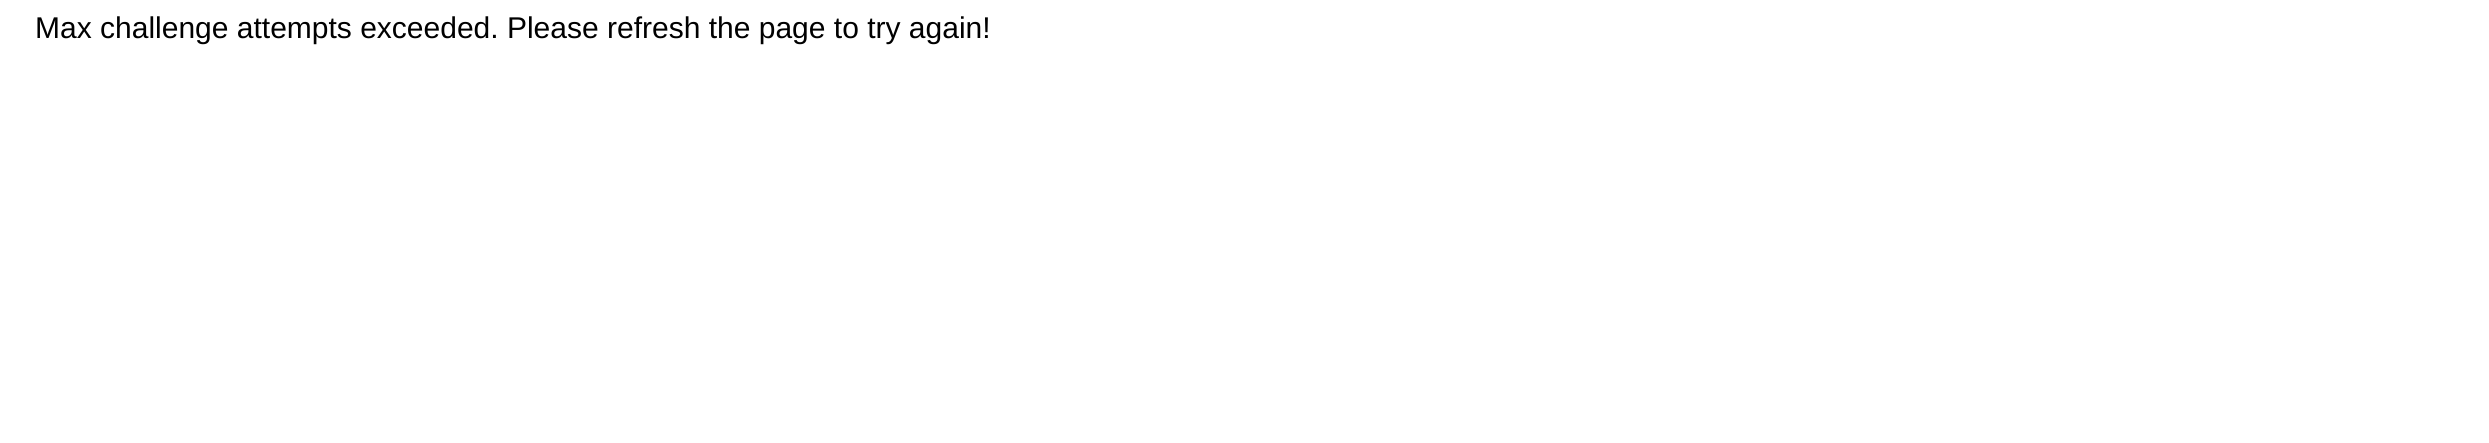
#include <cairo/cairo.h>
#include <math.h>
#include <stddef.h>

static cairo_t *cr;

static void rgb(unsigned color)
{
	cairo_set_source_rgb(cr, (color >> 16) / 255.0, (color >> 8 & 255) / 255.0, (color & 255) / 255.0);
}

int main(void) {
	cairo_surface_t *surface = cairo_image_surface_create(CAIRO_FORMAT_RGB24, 2489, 443);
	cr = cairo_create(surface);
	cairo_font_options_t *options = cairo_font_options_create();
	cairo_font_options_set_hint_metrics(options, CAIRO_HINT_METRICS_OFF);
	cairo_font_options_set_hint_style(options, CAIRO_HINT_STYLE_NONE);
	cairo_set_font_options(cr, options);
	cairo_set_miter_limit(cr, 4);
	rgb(0xffffff);
	cairo_paint(cr);
	cairo_select_font_face(cr, "Liberation Sans", CAIRO_FONT_SLANT_NORMAL, CAIRO_FONT_WEIGHT_NORMAL);
	cairo_set_font_size(cr, 30);
	rgb(0x000000);
	cairo_move_to(cr, 35, 38);
	cairo_show_text(cr, "Max challenge attempts exceeded. Please refresh the page to try again!");
	cairo_surface_write_to_png(surface, "page.png");
	cairo_font_options_destroy(options);
	cairo_destroy(cr);
	cairo_surface_destroy(surface);
	return 0;
}
